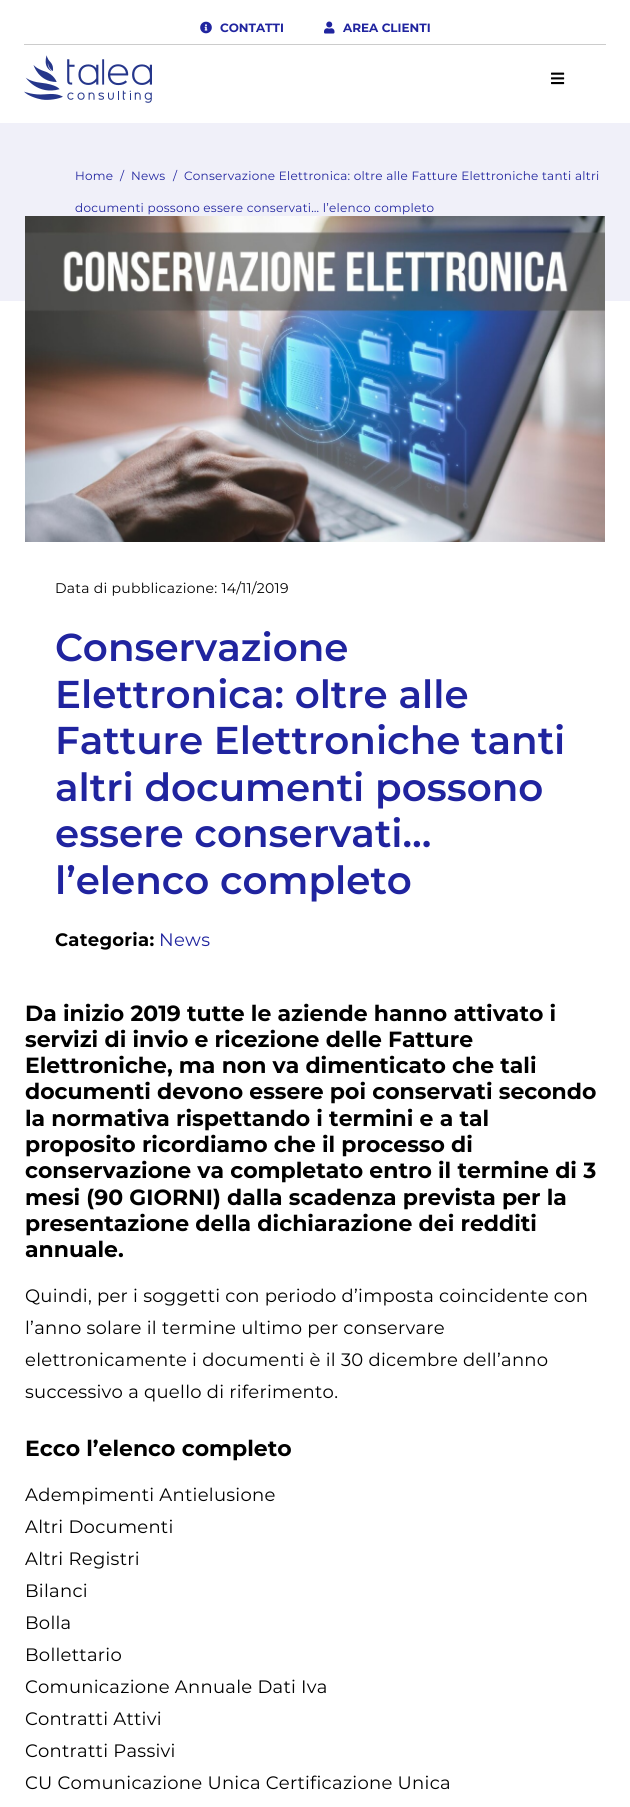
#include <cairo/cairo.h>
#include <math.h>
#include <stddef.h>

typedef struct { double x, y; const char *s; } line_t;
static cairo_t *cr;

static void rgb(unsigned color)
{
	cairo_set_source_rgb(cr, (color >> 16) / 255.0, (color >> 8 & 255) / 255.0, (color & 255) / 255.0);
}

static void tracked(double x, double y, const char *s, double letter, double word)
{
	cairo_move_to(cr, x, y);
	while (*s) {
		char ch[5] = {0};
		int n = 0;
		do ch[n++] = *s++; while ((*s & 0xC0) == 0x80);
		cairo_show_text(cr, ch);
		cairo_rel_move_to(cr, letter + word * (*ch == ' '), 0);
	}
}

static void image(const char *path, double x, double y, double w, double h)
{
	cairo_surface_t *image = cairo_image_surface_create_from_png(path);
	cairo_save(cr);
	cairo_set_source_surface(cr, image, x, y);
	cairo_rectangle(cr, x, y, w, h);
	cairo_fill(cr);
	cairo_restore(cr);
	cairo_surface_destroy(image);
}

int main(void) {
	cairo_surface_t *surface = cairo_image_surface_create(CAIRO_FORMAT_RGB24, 630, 1807);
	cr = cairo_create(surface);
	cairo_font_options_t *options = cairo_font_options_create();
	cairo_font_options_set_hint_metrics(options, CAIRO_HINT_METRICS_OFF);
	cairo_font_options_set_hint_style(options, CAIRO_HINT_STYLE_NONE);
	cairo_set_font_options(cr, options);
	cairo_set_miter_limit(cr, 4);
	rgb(0xffffff);
	cairo_paint(cr);
	rgb(0xcccccc);
	cairo_rectangle(cr, 24, 44, 582, 1);
	cairo_fill(cr);
	image("img/1.png", 200, 21, 12, 13);
	image("img/2.png", 324, 21, 11, 13);
	image("img/3.png", 24, 55, 128, 48);
	image("img/4.png", 551, 72, 14, 13);
	rgb(0xf0f0f9);
	cairo_rectangle(cr, 0, 123, 630, 178);
	cairo_fill(cr);
	image("img/5.png", 25, 216, 580, 326);
	cairo_select_font_face(cr, "Montserrat", CAIRO_FONT_SLANT_NORMAL, CAIRO_FONT_WEIGHT_BOLD);
	cairo_set_font_size(cr, 12);
	rgb(0x20249f);
	cairo_move_to(cr, 220, 32);
	cairo_show_text(cr, "CONTATTI");
	cairo_move_to(cr, 343, 32);
	cairo_show_text(cr, "AREA CLIENTI");
	cairo_select_font_face(cr, "Montserrat", CAIRO_FONT_SLANT_NORMAL, CAIRO_FONT_WEIGHT_NORMAL);
	{
		static const line_t items[] = {
			{75, 180, "Home"},
			{120, 180, "/"},
			{131, 180, "News"},
			{173, 180, "/"},
			{184, 180, "Conservazione Elettronica: oltre alle Fatture Elettroniche tanti altri"},
			{75, 212, "documenti possono essere conservati… l’elenco completo"},
		};
		for (size_t i = 0; i < sizeof items / sizeof *items; i++) {
			tracked(items[i].x, items[i].y, items[i].s, 0.27, 0);
		}
	}
	cairo_set_font_size(cr, 14);
	rgb(0x000000);
	tracked(55, 593, "Data di pubblicazione: 14/11/2019", 0.27, 0);
	cairo_select_font_face(cr, "Montserrat SemiBold", CAIRO_FONT_SLANT_NORMAL, CAIRO_FONT_WEIGHT_NORMAL);
	cairo_set_font_size(cr, 38.8);
	rgb(0x20249f);
	{
		static const line_t items[] = {
			{55, 661, "Conservazione"},
			{55, 708, "Elettronica: oltre alle"},
			{55, 754, "Fatture Elettroniche tanti"},
			{55, 801, "altri documenti possono"},
			{55, 847, "essere conservati…"},
			{55, 894, "l’elenco completo"},
		};
		for (size_t i = 0; i < sizeof items / sizeof *items; i++) {
			cairo_move_to(cr, items[i].x, items[i].y);
			cairo_show_text(cr, items[i].s);
		}
	}
	cairo_select_font_face(cr, "Montserrat", CAIRO_FONT_SLANT_NORMAL, CAIRO_FONT_WEIGHT_BOLD);
	cairo_set_font_size(cr, 18);
	rgb(0x000000);
	tracked(55, 946, "Categoria:", 0.27, 0);
	cairo_select_font_face(cr, "Montserrat", CAIRO_FONT_SLANT_NORMAL, CAIRO_FONT_WEIGHT_NORMAL);
	rgb(0x20249f);
	tracked(159, 946, "News", 0.27, 0);
	cairo_select_font_face(cr, "Montserrat", CAIRO_FONT_SLANT_NORMAL, CAIRO_FONT_WEIGHT_BOLD);
	cairo_set_font_size(cr, 21.95);
	rgb(0x000000);
	{
		static const line_t items[] = {
			{25, 1021, "Da inizio 2019 tutte le aziende hanno attivato i"},
			{25, 1047, "servizi di invio e ricezione delle Fatture"},
			{25, 1073, "Elettroniche, ma non va dimenticato che tali"},
			{25, 1099, "documenti devono essere poi conservati secondo"},
			{25, 1126, "la normativa rispettando i termini e a tal"},
			{25, 1152, "proposito ricordiamo che il processo di"},
			{25, 1178, "conservazione va completato entro il termine di 3"},
			{25, 1205, "mesi (90 GIORNI) dalla scadenza prevista per la"},
			{25, 1231, "presentazione della dichiarazione dei redditi"},
			{25, 1257, "annuale."},
		};
		for (size_t i = 0; i < sizeof items / sizeof *items; i++) {
			cairo_move_to(cr, items[i].x, items[i].y);
			cairo_show_text(cr, items[i].s);
		}
	}
	cairo_select_font_face(cr, "Montserrat", CAIRO_FONT_SLANT_NORMAL, CAIRO_FONT_WEIGHT_NORMAL);
	cairo_set_font_size(cr, 18);
	{
		static const line_t items[] = {
			{25, 1302, "Quindi, per i soggetti con periodo d’imposta coincidente con"},
			{25, 1334, "l’anno solare il termine ultimo per conservare"},
			{25, 1366, "elettronicamente i documenti è il 30 dicembre dell’anno"},
			{25, 1398, "successivo a quello di riferimento."},
		};
		for (size_t i = 0; i < sizeof items / sizeof *items; i++) {
			tracked(items[i].x, items[i].y, items[i].s, 0.27, 0);
		}
	}
	cairo_select_font_face(cr, "Montserrat", CAIRO_FONT_SLANT_NORMAL, CAIRO_FONT_WEIGHT_BOLD);
	cairo_set_font_size(cr, 21.95);
	cairo_move_to(cr, 25, 1456);
	cairo_show_text(cr, "Ecco l’elenco completo");
	cairo_select_font_face(cr, "Montserrat", CAIRO_FONT_SLANT_NORMAL, CAIRO_FONT_WEIGHT_NORMAL);
	cairo_set_font_size(cr, 18);
	{
		static const line_t items[] = {
			{25, 1501, "Adempimenti Antielusione"},
			{25, 1533, "Altri Documenti"},
			{25, 1565, "Altri Registri"},
			{25, 1597, "Bilanci"},
			{25, 1629, "Bolla"},
			{25, 1661, "Bollettario"},
			{25, 1693, "Comunicazione Annuale Dati Iva"},
			{25, 1725, "Contratti Attivi"},
			{25, 1757, "Contratti Passivi"},
			{25, 1789, "CU Comunicazione Unica Certificazione Unica"},
		};
		for (size_t i = 0; i < sizeof items / sizeof *items; i++) {
			tracked(items[i].x, items[i].y, items[i].s, 0.27, 0);
		}
	}
	cairo_surface_write_to_png(surface, "page.png");
	cairo_font_options_destroy(options);
	cairo_destroy(cr);
	cairo_surface_destroy(surface);
	return 0;
}
